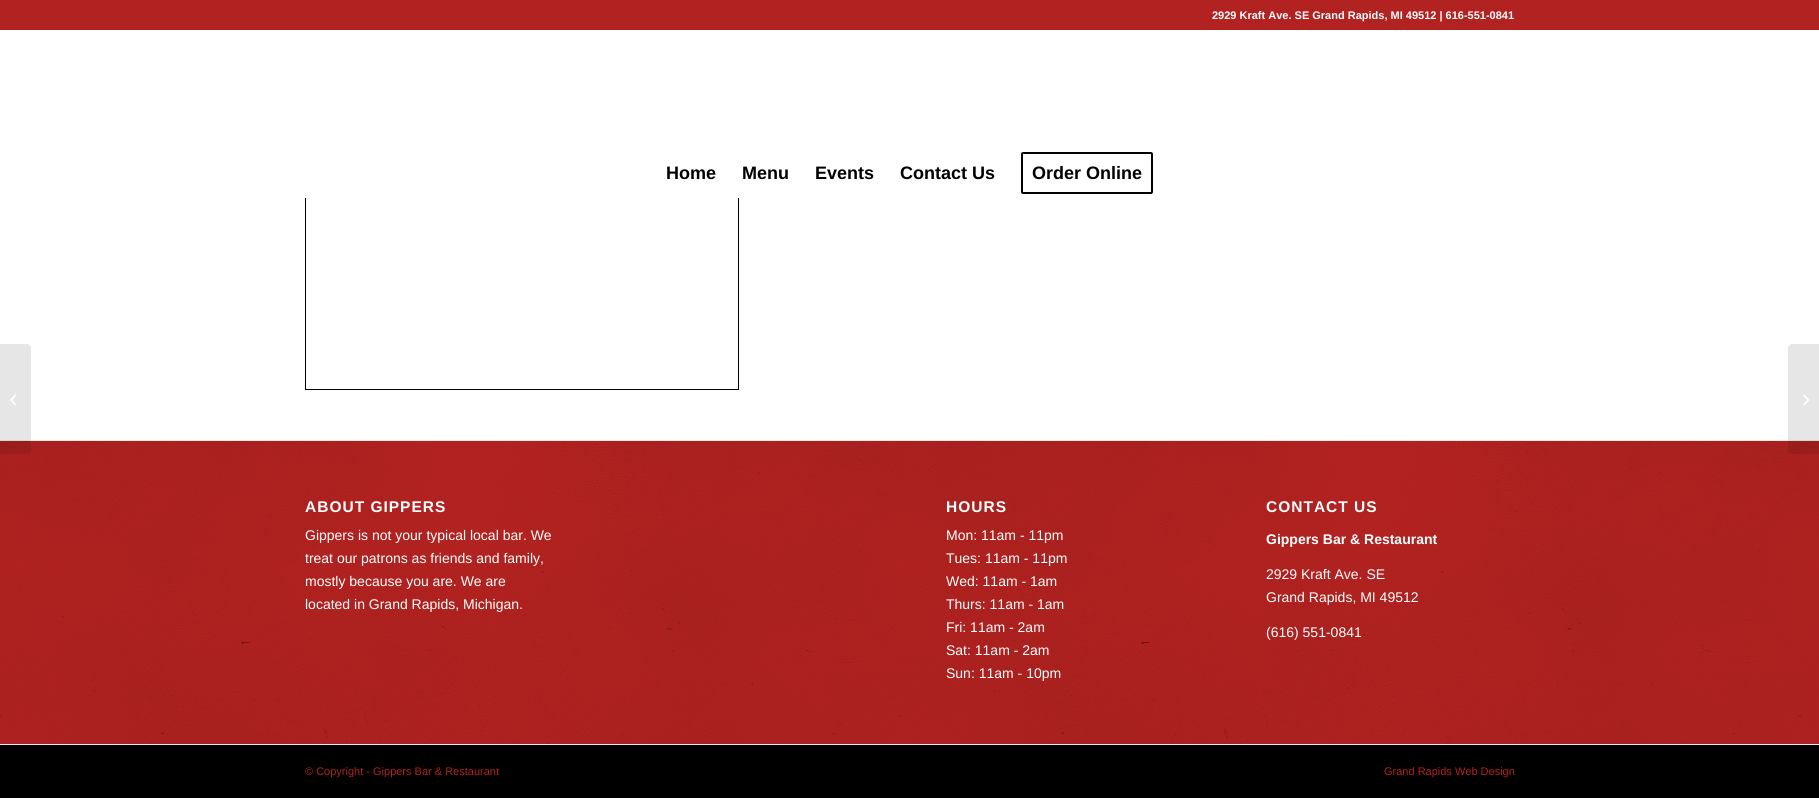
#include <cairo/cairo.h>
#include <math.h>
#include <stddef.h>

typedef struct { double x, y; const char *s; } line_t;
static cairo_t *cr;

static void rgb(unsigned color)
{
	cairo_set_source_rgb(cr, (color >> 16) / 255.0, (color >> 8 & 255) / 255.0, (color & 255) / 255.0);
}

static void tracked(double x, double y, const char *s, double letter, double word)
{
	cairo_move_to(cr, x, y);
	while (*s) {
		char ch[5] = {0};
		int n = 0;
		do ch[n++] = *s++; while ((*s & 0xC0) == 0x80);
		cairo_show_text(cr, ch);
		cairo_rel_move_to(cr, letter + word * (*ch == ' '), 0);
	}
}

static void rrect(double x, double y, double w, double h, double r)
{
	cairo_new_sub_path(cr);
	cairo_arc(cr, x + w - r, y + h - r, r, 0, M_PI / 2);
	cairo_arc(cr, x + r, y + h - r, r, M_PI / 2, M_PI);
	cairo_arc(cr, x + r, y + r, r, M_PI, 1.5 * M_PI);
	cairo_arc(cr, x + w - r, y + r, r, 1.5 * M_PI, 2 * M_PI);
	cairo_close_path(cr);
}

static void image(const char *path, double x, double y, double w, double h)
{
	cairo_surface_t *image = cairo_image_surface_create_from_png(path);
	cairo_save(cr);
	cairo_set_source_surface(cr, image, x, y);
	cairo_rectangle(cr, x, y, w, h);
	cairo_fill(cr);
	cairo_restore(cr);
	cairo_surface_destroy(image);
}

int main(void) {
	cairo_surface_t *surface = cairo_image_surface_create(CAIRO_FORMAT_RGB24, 1819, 798);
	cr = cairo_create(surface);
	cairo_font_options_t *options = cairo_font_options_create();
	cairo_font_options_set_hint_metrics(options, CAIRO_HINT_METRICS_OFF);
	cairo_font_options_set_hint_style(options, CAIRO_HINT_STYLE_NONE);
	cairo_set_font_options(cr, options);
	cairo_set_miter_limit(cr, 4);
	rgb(0xffffff);
	cairo_paint(cr);
	cairo_rectangle(cr, 305.5, -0.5, 433, 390);
	rgb(0x000000);
	cairo_set_line_width(cr, 1);
	cairo_stroke(cr);
	rgb(0xb12220);
	cairo_rectangle(cr, 0, 0, 1819, 30);
	cairo_fill(cr);
	rgb(0xffffff);
	cairo_rectangle(cr, 305, 30, 434, 168);
	cairo_fill(cr);
	rrect(1022, 153, 130, 40, 1);
	rgb(0x000000);
	cairo_set_line_width(cr, 2);
	cairo_stroke(cr);
	rgb(0xb12220);
	cairo_rectangle(cr, 0, 441, 1819, 303);
	cairo_fill(cr);
	image("img/3.png", 0, 441, 1819, 303);
	rgb(0xebebeb);
	cairo_rectangle(cr, 0, 440, 1819, 1);
	cairo_fill(cr);
	cairo_set_source_rgba(cr, 0, 0, 0, 0.1);
	cairo_new_path(cr);
	cairo_move_to(cr, 0, 344);
	cairo_line_to(cr, 27, 344);
	cairo_curve_to(cr, 29, 344, 31, 346, 31, 348);
	cairo_line_to(cr, 31, 450);
	cairo_curve_to(cr, 31, 452, 29, 454, 27, 454);
	cairo_line_to(cr, 0, 454);
	cairo_close_path(cr);
	cairo_fill(cr);
	image("img/1.png", 10, 394, 6, 12);
	cairo_new_path(cr);
	cairo_move_to(cr, 1792, 344);
	cairo_line_to(cr, 1819, 344);
	cairo_line_to(cr, 1819, 454);
	cairo_line_to(cr, 1792, 454);
	cairo_curve_to(cr, 1790, 454, 1788, 452, 1788, 450);
	cairo_line_to(cr, 1788, 348);
	cairo_curve_to(cr, 1788, 346, 1790, 344, 1792, 344);
	cairo_close_path(cr);
	cairo_fill(cr);
	image("img/2.png", 1803, 394, 6, 12);
	rgb(0x000000);
	cairo_rectangle(cr, 0, 745, 1819, 53);
	cairo_fill(cr);
	rgb(0xebebeb);
	cairo_rectangle(cr, 0, 744, 1819, 1);
	cairo_fill(cr);
	cairo_select_font_face(cr, "Liberation Sans", CAIRO_FONT_SLANT_NORMAL, CAIRO_FONT_WEIGHT_BOLD);
	cairo_set_font_size(cr, 11);
	rgb(0xffffff);
	cairo_move_to(cr, 1212, 19);
	cairo_show_text(cr, "2929 Kraft Ave. SE Grand Rapids, MI 49512 | 616-551-0841");
	cairo_set_font_size(cr, 18);
	rgb(0x000000);
	{
		static const line_t items[] = {
			{666, 179, "Home"},
			{742, 179, "Menu"},
			{815, 179, "Events"},
			{900, 179, "Contact Us"},
			{1032, 179, "Order Online"},
		};
		for (size_t i = 0; i < sizeof items / sizeof *items; i++) {
			cairo_move_to(cr, items[i].x, items[i].y);
			cairo_show_text(cr, items[i].s);
		}
	}
	cairo_set_font_size(cr, 15.5);
	rgb(0xffffff);
	tracked(305, 512, "ABOUT GIPPERS", 1, 0);
	cairo_select_font_face(cr, "Liberation Sans", CAIRO_FONT_SLANT_NORMAL, CAIRO_FONT_WEIGHT_NORMAL);
	cairo_set_font_size(cr, 14);
	{
		static const line_t items[] = {
			{305, 540, "Gippers is not your typical local bar. We"},
			{305, 563, "treat our patrons as friends and family,"},
			{305, 586, "mostly because you are. We are"},
			{305, 609, "located in Grand Rapids, Michigan."},
		};
		for (size_t i = 0; i < sizeof items / sizeof *items; i++) {
			cairo_move_to(cr, items[i].x, items[i].y);
			cairo_show_text(cr, items[i].s);
		}
	}
	cairo_select_font_face(cr, "Liberation Sans", CAIRO_FONT_SLANT_NORMAL, CAIRO_FONT_WEIGHT_BOLD);
	cairo_set_font_size(cr, 15.5);
	tracked(946, 512, "HOURS", 1, 0);
	cairo_select_font_face(cr, "Liberation Sans", CAIRO_FONT_SLANT_NORMAL, CAIRO_FONT_WEIGHT_NORMAL);
	cairo_set_font_size(cr, 14);
	{
		static const line_t items[] = {
			{946, 540, "Mon: 11am - 11pm"},
			{946, 563, "Tues: 11am - 11pm"},
			{946, 586, "Wed: 11am - 1am"},
			{946, 609, "Thurs: 11am - 1am"},
			{946, 632, "Fri: 11am - 2am"},
			{946, 655, "Sat: 11am - 2am"},
			{946, 678, "Sun: 11am - 10pm"},
		};
		for (size_t i = 0; i < sizeof items / sizeof *items; i++) {
			cairo_move_to(cr, items[i].x, items[i].y);
			cairo_show_text(cr, items[i].s);
		}
	}
	cairo_select_font_face(cr, "Liberation Sans", CAIRO_FONT_SLANT_NORMAL, CAIRO_FONT_WEIGHT_BOLD);
	cairo_set_font_size(cr, 15.5);
	tracked(1266, 512, "CONTACT US", 1, 0);
	cairo_set_font_size(cr, 14);
	cairo_move_to(cr, 1266, 544);
	cairo_show_text(cr, "Gippers Bar & Restaurant");
	cairo_select_font_face(cr, "Liberation Sans", CAIRO_FONT_SLANT_NORMAL, CAIRO_FONT_WEIGHT_NORMAL);
	{
		static const line_t items[] = {
			{1266, 579, "2929 Kraft Ave. SE"},
			{1266, 602, "Grand Rapids, MI 49512"},
			{1266, 637, "(616) 551-0841"},
		};
		for (size_t i = 0; i < sizeof items / sizeof *items; i++) {
			cairo_move_to(cr, items[i].x, items[i].y);
			cairo_show_text(cr, items[i].s);
		}
	}
	cairo_set_font_size(cr, 11);
	rgb(0xb12220);
	cairo_move_to(cr, 305, 775);
	cairo_show_text(cr, "© Copyright - Gippers Bar & Restaurant");
	cairo_move_to(cr, 1384, 775);
	cairo_show_text(cr, "Grand Rapids Web Design");
	cairo_surface_write_to_png(surface, "page.png");
	cairo_font_options_destroy(options);
	cairo_destroy(cr);
	cairo_surface_destroy(surface);
	return 0;
}
